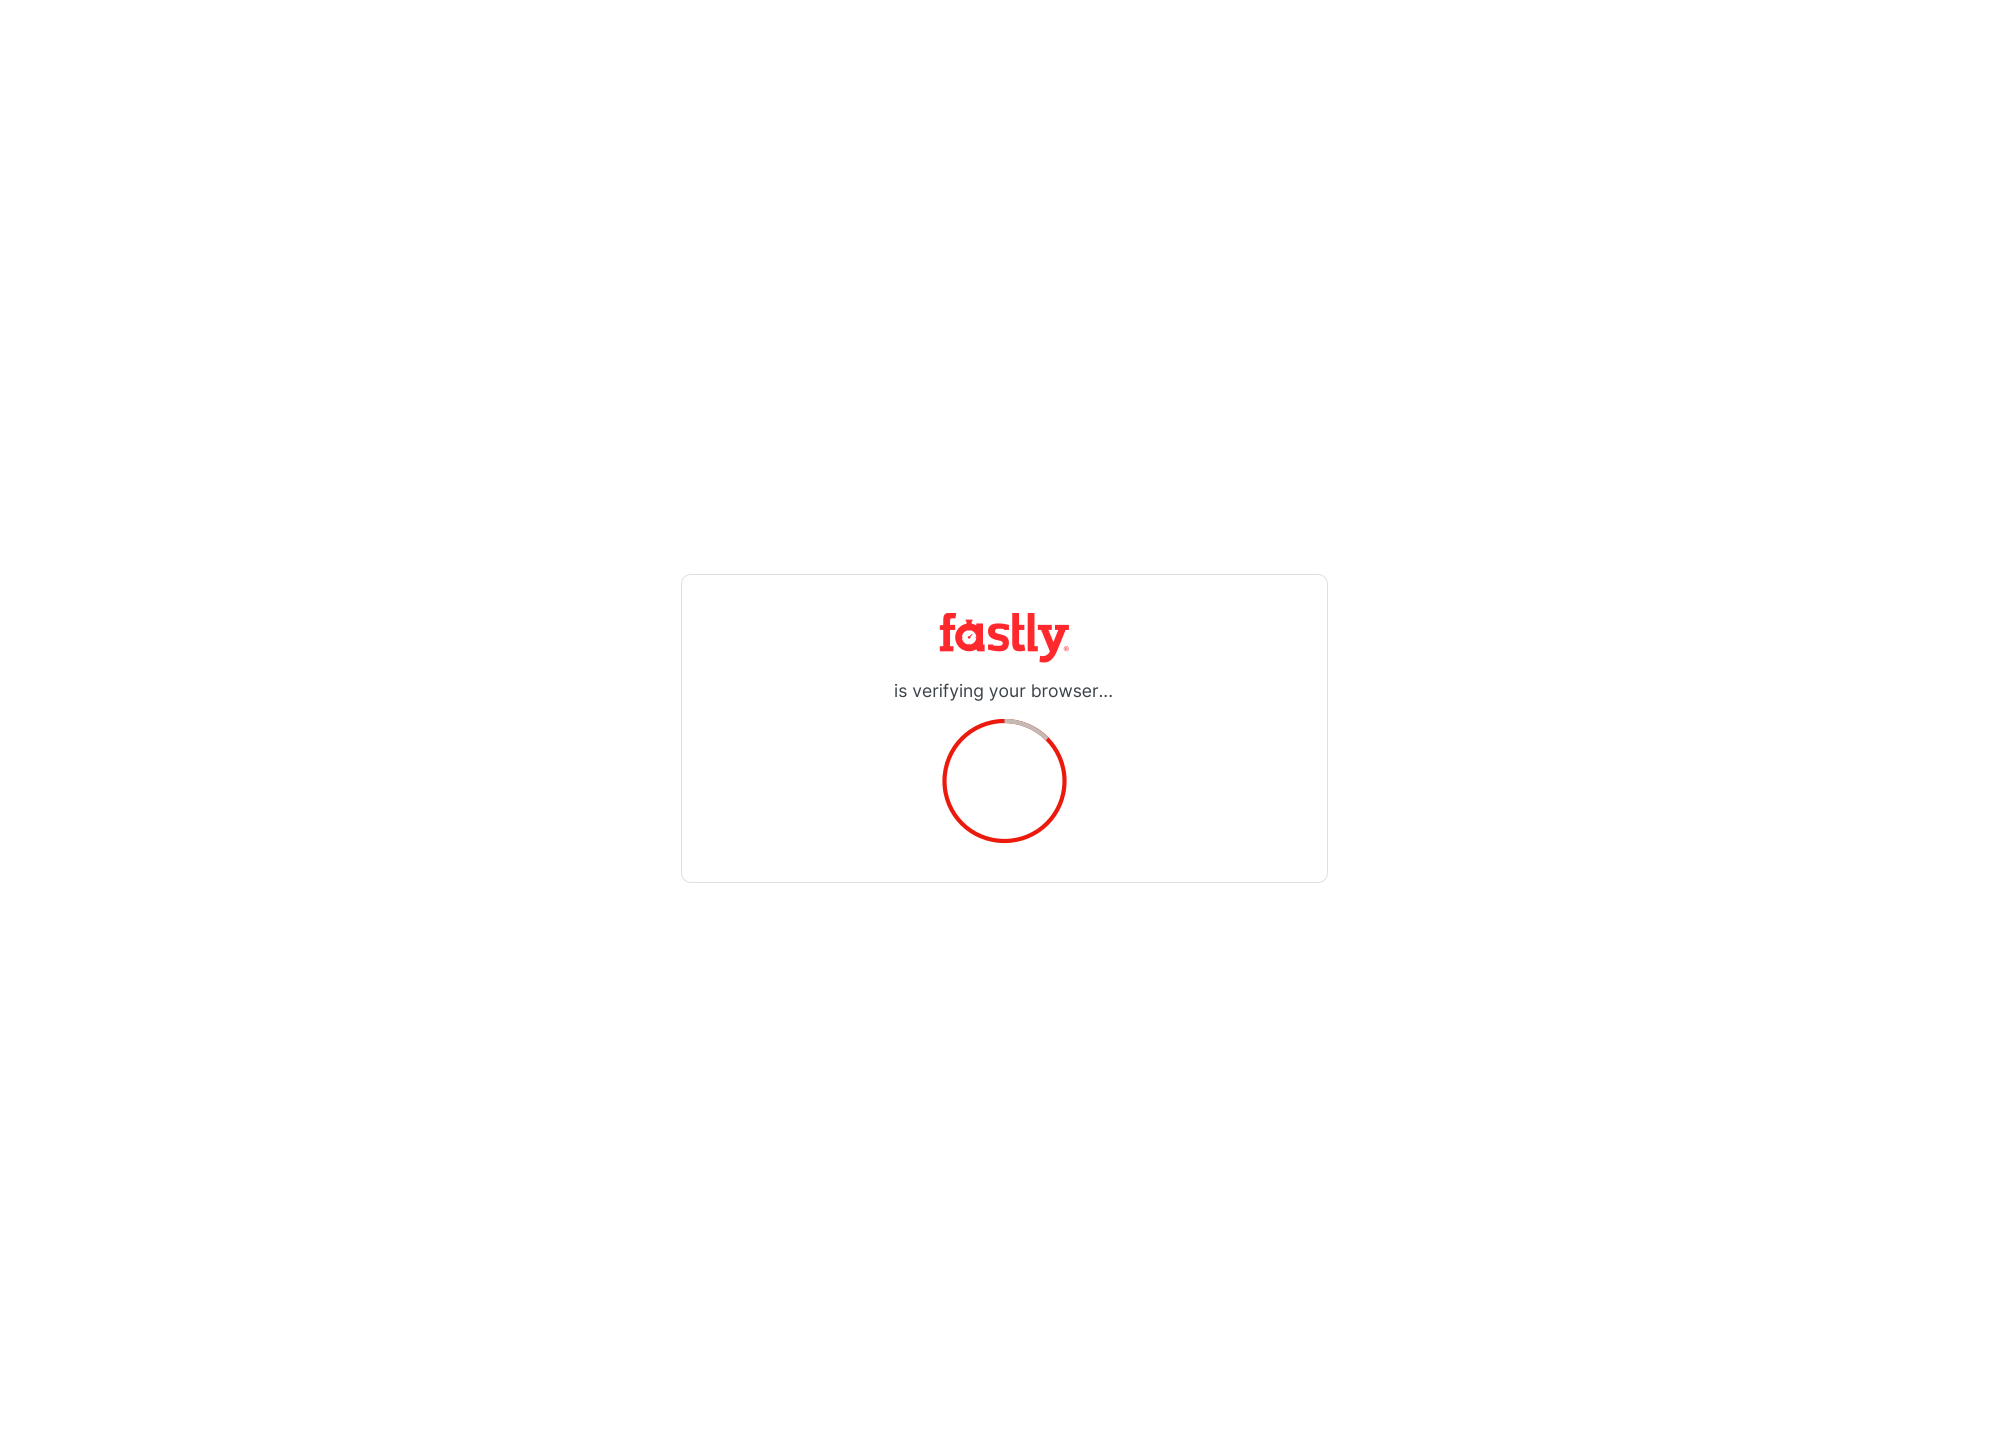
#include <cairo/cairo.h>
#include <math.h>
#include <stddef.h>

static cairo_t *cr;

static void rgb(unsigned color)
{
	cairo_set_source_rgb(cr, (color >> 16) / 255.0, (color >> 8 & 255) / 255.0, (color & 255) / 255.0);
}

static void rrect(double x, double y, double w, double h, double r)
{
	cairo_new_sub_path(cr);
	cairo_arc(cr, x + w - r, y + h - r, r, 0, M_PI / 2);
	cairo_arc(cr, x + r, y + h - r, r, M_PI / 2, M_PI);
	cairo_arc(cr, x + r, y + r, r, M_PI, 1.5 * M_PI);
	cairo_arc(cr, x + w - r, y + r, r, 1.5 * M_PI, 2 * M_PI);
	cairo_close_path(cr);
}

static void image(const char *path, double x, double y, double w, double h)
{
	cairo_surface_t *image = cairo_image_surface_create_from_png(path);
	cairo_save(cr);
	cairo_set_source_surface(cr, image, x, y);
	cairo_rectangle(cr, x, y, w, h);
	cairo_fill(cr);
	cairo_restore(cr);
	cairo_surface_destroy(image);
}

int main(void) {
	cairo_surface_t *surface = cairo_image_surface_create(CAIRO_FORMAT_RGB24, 2007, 1455);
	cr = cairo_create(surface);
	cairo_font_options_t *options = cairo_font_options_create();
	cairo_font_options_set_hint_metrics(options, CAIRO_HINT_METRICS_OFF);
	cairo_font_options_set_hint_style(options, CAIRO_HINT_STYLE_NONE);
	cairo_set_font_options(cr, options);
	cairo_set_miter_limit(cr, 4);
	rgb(0xffffff);
	cairo_paint(cr);
	rrect(681.5, 574.5, 646, 308, 9.5);
	rgb(0xdce0e4);
	cairo_set_line_width(cr, 1);
	cairo_stroke(cr);
	image("img/1.png", 939, 613, 130, 50);
	cairo_save(cr);
	cairo_rectangle(cr, 720, 719, 569, 125);
	cairo_clip(cr);
	cairo_new_path(cr);
	cairo_move_to(cr, 944.5, 781);
	cairo_curve_to(cr, 944.5, 748, 971, 721, 1004.5, 721);
	cairo_curve_to(cr, 1037.5, 721, 1064.5, 748, 1064.5, 781);
	cairo_curve_to(cr, 1064.5, 814.5, 1037.5, 841, 1004.5, 841);
	cairo_curve_to(cr, 971, 841, 944.5, 814.5, 944.5, 781);
	cairo_close_path(cr);
	rgb(0xeb1a0c);
	cairo_set_line_width(cr, 4.2);
	cairo_stroke(cr);
	cairo_restore(cr);
	cairo_new_path(cr);
	cairo_move_to(cr, 1047, 739);
	cairo_curve_to(cr, 1035.5, 727.5, 1020.5, 721, 1004.5, 721);
	rgb(0xc2bab5);
	cairo_set_line_width(cr, 4.2);
	cairo_stroke(cr);
	cairo_select_font_face(cr, "Inter", CAIRO_FONT_SLANT_NORMAL, CAIRO_FONT_WEIGHT_NORMAL);
	cairo_set_font_size(cr, 17.5);
	rgb(0x3a424a);
	cairo_move_to(cr, 894, 697);
	cairo_show_text(cr, "is verifying your browser...");
	cairo_surface_write_to_png(surface, "page.png");
	cairo_font_options_destroy(options);
	cairo_destroy(cr);
	cairo_surface_destroy(surface);
	return 0;
}
